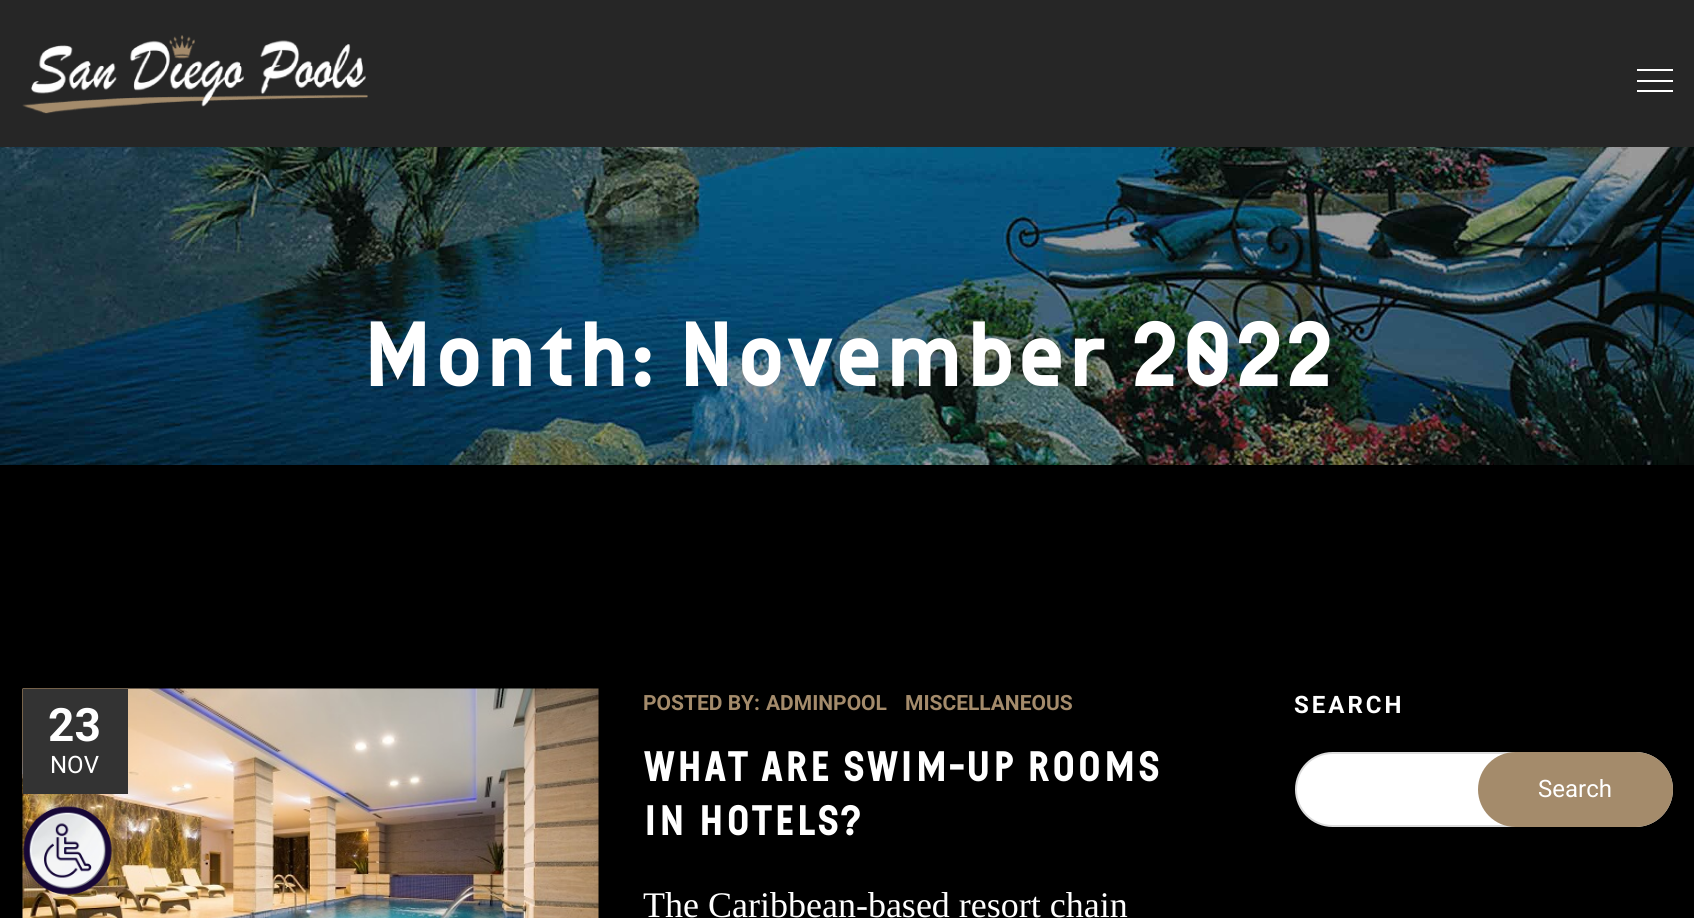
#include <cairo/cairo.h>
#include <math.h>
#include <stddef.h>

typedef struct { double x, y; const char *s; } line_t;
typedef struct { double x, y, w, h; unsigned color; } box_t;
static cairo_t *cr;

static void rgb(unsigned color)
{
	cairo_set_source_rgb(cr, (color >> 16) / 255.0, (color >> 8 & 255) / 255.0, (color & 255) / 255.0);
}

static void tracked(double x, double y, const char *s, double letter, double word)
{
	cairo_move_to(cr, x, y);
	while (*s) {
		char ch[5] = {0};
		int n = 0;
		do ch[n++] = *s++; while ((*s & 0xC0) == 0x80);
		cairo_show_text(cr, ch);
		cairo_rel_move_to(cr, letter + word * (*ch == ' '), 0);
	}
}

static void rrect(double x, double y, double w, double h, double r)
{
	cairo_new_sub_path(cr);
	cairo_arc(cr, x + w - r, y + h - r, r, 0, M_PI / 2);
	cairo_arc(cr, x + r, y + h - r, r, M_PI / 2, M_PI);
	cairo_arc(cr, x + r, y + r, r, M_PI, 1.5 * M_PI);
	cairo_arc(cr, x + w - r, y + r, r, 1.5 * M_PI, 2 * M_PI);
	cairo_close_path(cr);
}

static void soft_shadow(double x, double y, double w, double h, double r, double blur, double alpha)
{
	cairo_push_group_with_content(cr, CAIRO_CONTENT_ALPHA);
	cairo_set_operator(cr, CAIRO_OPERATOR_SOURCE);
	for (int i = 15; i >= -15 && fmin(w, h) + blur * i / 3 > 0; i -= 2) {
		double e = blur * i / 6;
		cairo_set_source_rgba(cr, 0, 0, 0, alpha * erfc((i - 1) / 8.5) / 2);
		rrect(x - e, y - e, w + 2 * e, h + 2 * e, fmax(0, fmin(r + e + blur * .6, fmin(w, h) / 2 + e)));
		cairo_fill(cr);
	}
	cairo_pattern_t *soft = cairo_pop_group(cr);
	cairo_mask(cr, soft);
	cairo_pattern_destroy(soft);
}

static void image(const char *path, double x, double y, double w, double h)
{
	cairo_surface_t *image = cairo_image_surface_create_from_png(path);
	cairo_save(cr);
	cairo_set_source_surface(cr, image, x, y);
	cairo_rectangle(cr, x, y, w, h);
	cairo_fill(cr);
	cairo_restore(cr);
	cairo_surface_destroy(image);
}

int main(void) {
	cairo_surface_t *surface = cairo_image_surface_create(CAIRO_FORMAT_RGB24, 1694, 918);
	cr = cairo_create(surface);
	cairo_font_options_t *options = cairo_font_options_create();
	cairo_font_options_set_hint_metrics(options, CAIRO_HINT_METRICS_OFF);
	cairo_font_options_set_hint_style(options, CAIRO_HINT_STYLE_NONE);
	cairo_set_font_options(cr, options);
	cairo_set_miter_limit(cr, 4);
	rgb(0x000000);
	cairo_paint(cr);
	rgb(0x262626);
	cairo_rectangle(cr, 0, 0, 1694, 147);
	cairo_fill(cr);
	image("img/1.png", 22, 35, 346, 79);
	{
		static const box_t items[] = {
			{1637, 69, 36, 2, 0xffffff},
			{1637, 80, 36, 2, 0xffffff},
			{1637, 90, 36, 2, 0xffffff},
		};
		for (size_t i = 0; i < sizeof items / sizeof *items; i++) {
			rgb(items[i].color);
			cairo_rectangle(cr, items[i].x, items[i].y, items[i].w, items[i].h);
			cairo_fill(cr);
		}
	}
	image("img/2.png", 0, 147, 1694, 318);
	image("img/3.png", 22, 688, 577, 230);
	rgb(0x333333);
	cairo_rectangle(cr, 23, 689, 105, 105);
	cairo_fill(cr);
	rgb(0xffffff);
	rrect(1296, 753, 376, 73, 36.5);
	cairo_fill_preserve(cr);
	rgb(0xdddddd);
	cairo_stroke(cr);
	rgb(0xa48b6b);
	rrect(1478, 752, 195, 75, 37.5);
	cairo_fill(cr);
	cairo_save(cr);
	cairo_set_fill_rule(cr, CAIRO_FILL_RULE_EVEN_ODD);
	cairo_new_path(cr);
	cairo_move_to(cr, 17, 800);
	cairo_line_to(cr, 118, 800);
	cairo_line_to(cr, 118, 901);
	cairo_line_to(cr, 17, 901);
	cairo_close_path(cr);
	cairo_move_to(cr, 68, 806);
	cairo_curve_to(cr, 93, 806, 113, 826, 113, 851);
	cairo_curve_to(cr, 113, 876, 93, 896, 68, 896);
	cairo_curve_to(cr, 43, 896, 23, 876, 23, 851);
	cairo_curve_to(cr, 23, 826, 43, 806, 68, 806);
	cairo_close_path(cr);
	cairo_clip(cr);
	rgb(0x000000);
	soft_shadow(21, 804, 93, 93, 46.5, 1, 0.1);
	cairo_restore(cr);
	image("img/4.png", 23, 806, 89, 89);
	cairo_select_font_face(cr, "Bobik", CAIRO_FONT_SLANT_NORMAL, CAIRO_FONT_WEIGHT_BOLD);
	cairo_set_font_size(cr, 78);
	rgb(0xffffff);
	tracked(361, 386, "Month: November 2022", 1.5, 0);
	cairo_select_font_face(cr, "Roboto", CAIRO_FONT_SLANT_NORMAL, CAIRO_FONT_WEIGHT_BOLD);
	cairo_set_font_size(cr, 46);
	cairo_move_to(cr, 48, 741);
	cairo_show_text(cr, "23");
	cairo_select_font_face(cr, "Roboto", CAIRO_FONT_SLANT_NORMAL, CAIRO_FONT_WEIGHT_NORMAL);
	cairo_set_font_size(cr, 24);
	cairo_move_to(cr, 50, 773);
	cairo_show_text(cr, "NOV");
	cairo_select_font_face(cr, "Roboto", CAIRO_FONT_SLANT_NORMAL, CAIRO_FONT_WEIGHT_BOLD);
	cairo_set_font_size(cr, 21);
	rgb(0xa48b6b);
	{
		static const line_t items[] = {
			{643, 710, "POSTED BY:"},
			{766, 710, "ADMINPOOL"},
			{905, 710, "MISCELLANEOUS"},
		};
		for (size_t i = 0; i < sizeof items / sizeof *items; i++) {
			cairo_move_to(cr, items[i].x, items[i].y);
			cairo_show_text(cr, items[i].s);
		}
	}
	cairo_select_font_face(cr, "Bobik", CAIRO_FONT_SLANT_NORMAL, CAIRO_FONT_WEIGHT_BOLD);
	cairo_set_font_size(cr, 36);
	rgb(0xffffff);
	tracked(643, 781, "WHAT ARE SWIM-UP ROOMS", 1.5, 0);
	tracked(643, 835, "IN HOTELS?", 1.5, 0);
	cairo_select_font_face(cr, "Liberation Serif", CAIRO_FONT_SLANT_NORMAL, CAIRO_FONT_WEIGHT_NORMAL);
	cairo_move_to(cr, 643, 917);
	cairo_show_text(cr, "The Caribbean-based resort chain");
	cairo_select_font_face(cr, "Roboto", CAIRO_FONT_SLANT_NORMAL, CAIRO_FONT_WEIGHT_BOLD);
	cairo_set_font_size(cr, 24);
	tracked(1294, 713, "SEARCH", 3, 0);
	cairo_select_font_face(cr, "Roboto", CAIRO_FONT_SLANT_NORMAL, CAIRO_FONT_WEIGHT_NORMAL);
	cairo_move_to(cr, 1538, 797);
	cairo_show_text(cr, "Search");
	cairo_surface_write_to_png(surface, "page.png");
	cairo_font_options_destroy(options);
	cairo_destroy(cr);
	cairo_surface_destroy(surface);
	return 0;
}
